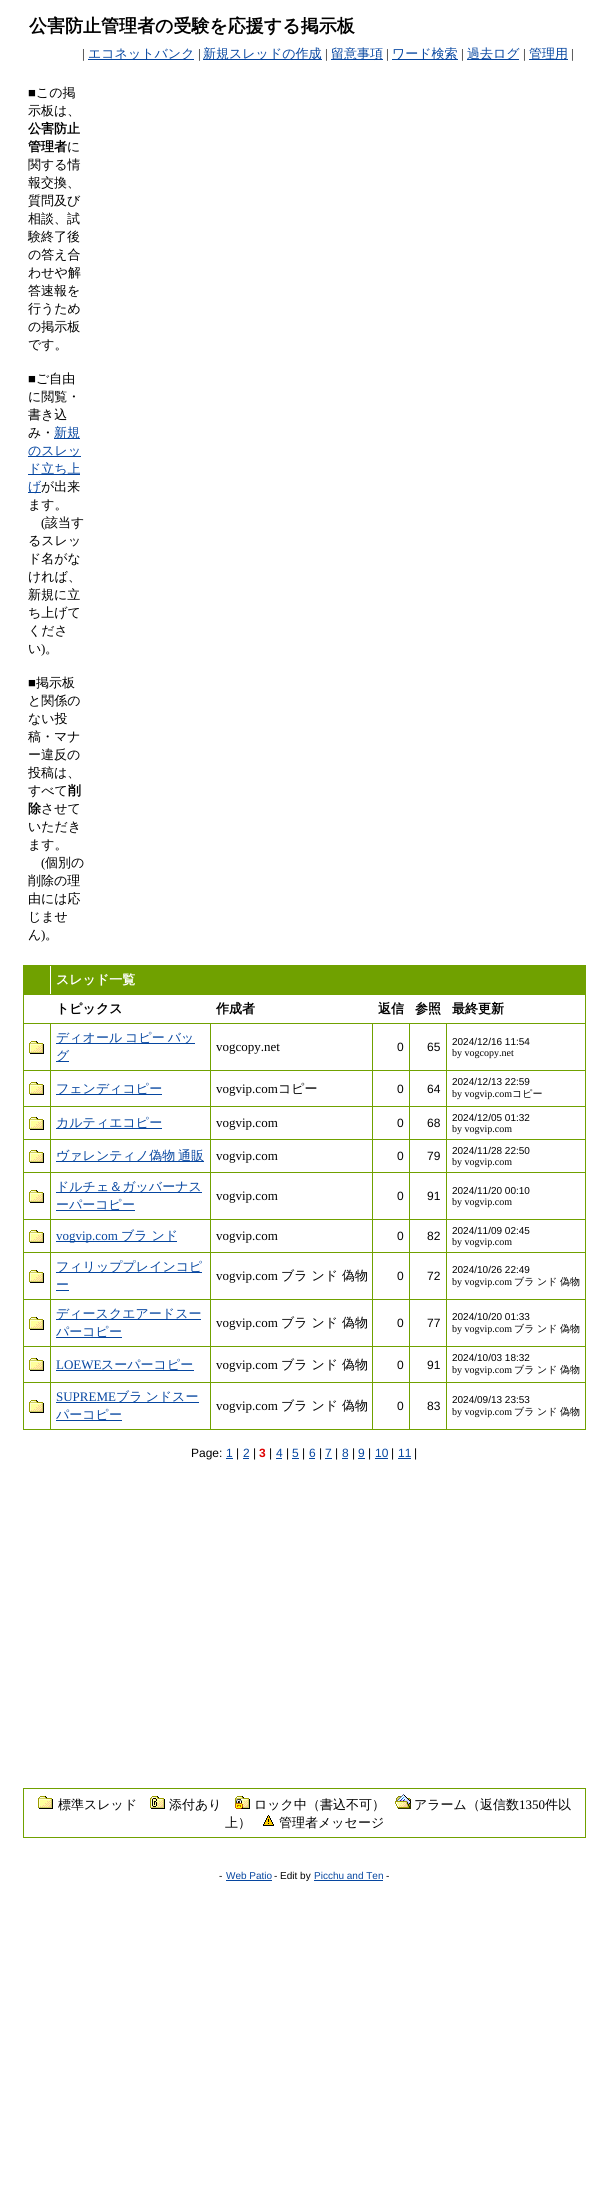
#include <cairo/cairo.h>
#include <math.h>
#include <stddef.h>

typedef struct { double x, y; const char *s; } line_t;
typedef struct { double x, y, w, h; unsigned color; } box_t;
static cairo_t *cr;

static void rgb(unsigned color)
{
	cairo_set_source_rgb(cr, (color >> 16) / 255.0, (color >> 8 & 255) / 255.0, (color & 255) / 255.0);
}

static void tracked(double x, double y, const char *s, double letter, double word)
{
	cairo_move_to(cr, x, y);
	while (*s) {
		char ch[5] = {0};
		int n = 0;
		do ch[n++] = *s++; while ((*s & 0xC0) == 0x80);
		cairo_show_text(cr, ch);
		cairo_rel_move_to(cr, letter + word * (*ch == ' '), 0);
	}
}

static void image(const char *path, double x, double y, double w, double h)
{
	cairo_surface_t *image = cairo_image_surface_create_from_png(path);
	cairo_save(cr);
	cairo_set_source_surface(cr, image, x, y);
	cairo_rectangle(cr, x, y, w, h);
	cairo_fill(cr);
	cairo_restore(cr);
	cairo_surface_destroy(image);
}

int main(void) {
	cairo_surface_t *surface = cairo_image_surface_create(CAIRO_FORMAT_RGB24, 609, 2193);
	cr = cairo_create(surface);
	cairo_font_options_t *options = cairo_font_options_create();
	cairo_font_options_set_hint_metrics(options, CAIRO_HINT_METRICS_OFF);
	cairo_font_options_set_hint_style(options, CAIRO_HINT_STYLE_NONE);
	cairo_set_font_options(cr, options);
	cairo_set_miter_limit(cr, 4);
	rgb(0xffffff);
	cairo_paint(cr);
	{
		static const box_t items[] = {
			{88, 59, 106, 1, 0x0646a0},
			{203, 59, 119, 1, 0x0646a0},
			{331, 59, 52, 1, 0x0646a0},
			{392, 59, 66, 1, 0x0646a0},
			{467, 59, 52, 1, 0x0646a0},
			{529, 59, 39, 1, 0x0646a0},
			{54, 438, 26, 1, 0x0646a0},
			{28, 456, 53, 1, 0x0646a0},
			{28, 474, 52, 1, 0x0646a0},
			{28, 492, 13, 1, 0x0646a0},
			{23, 965, 563, 465, 0x70a100},
			{50, 966, 1, 28, 0xffffff},
			{24, 995, 561, 28, 0xffffff},
			{24, 1024, 26, 46, 0xffffff},
		};
		for (size_t i = 0; i < sizeof items / sizeof *items; i++) {
			rgb(items[i].color);
			cairo_rectangle(cr, items[i].x, items[i].y, items[i].w, items[i].h);
			cairo_fill(cr);
		}
	}
	image("img/1.png", 29, 1041, 15, 13);
	{
		static const box_t items[] = {
			{51, 1024, 159, 46, 0xffffff},
			{56, 1043, 139, 1, 0x0646a0},
			{56, 1061, 13, 1, 0x0646a0},
			{211, 1024, 161, 46, 0xffffff},
			{373, 1024, 36, 46, 0xffffff},
			{410, 1024, 36, 46, 0xffffff},
			{447, 1024, 138, 46, 0xffffff},
			{24, 1071, 26, 35, 0xffffff},
		};
		for (size_t i = 0; i < sizeof items / sizeof *items; i++) {
			rgb(items[i].color);
			cairo_rectangle(cr, items[i].x, items[i].y, items[i].w, items[i].h);
			cairo_fill(cr);
		}
	}
	image("img/1.png", 29, 1082, 15, 13);
	{
		static const box_t items[] = {
			{51, 1071, 159, 35, 0xffffff},
			{56, 1094, 106, 1, 0x0646a0},
			{211, 1071, 161, 35, 0xffffff},
			{373, 1071, 36, 35, 0xffffff},
			{410, 1071, 36, 35, 0xffffff},
			{447, 1071, 138, 35, 0xffffff},
			{24, 1107, 26, 32, 0xffffff},
		};
		for (size_t i = 0; i < sizeof items / sizeof *items; i++) {
			rgb(items[i].color);
			cairo_rectangle(cr, items[i].x, items[i].y, items[i].w, items[i].h);
			cairo_fill(cr);
		}
	}
	image("img/1.png", 29, 1117, 15, 13);
	{
		static const box_t items[] = {
			{51, 1107, 159, 32, 0xffffff},
			{56, 1128, 106, 1, 0x0646a0},
			{211, 1107, 161, 32, 0xffffff},
			{373, 1107, 36, 32, 0xffffff},
			{410, 1107, 36, 32, 0xffffff},
			{447, 1107, 138, 32, 0xffffff},
			{24, 1140, 26, 32, 0xffffff},
		};
		for (size_t i = 0; i < sizeof items / sizeof *items; i++) {
			rgb(items[i].color);
			cairo_rectangle(cr, items[i].x, items[i].y, items[i].w, items[i].h);
			cairo_fill(cr);
		}
	}
	image("img/1.png", 29, 1150, 15, 13);
	{
		static const box_t items[] = {
			{51, 1140, 159, 32, 0xffffff},
			{56, 1161, 148, 1, 0x0646a0},
			{211, 1140, 161, 32, 0xffffff},
			{373, 1140, 36, 32, 0xffffff},
			{410, 1140, 36, 32, 0xffffff},
			{447, 1140, 138, 32, 0xffffff},
			{24, 1173, 26, 46, 0xffffff},
		};
		for (size_t i = 0; i < sizeof items / sizeof *items; i++) {
			rgb(items[i].color);
			cairo_rectangle(cr, items[i].x, items[i].y, items[i].w, items[i].h);
			cairo_fill(cr);
		}
	}
	image("img/1.png", 29, 1190, 15, 13);
	{
		static const box_t items[] = {
			{51, 1173, 159, 46, 0xffffff},
			{56, 1192, 146, 1, 0x0646a0},
			{56, 1210, 79, 1, 0x0646a0},
			{211, 1173, 161, 46, 0xffffff},
			{373, 1173, 36, 46, 0xffffff},
			{410, 1173, 36, 46, 0xffffff},
			{447, 1173, 138, 46, 0xffffff},
			{24, 1220, 26, 32, 0xffffff},
		};
		for (size_t i = 0; i < sizeof items / sizeof *items; i++) {
			rgb(items[i].color);
			cairo_rectangle(cr, items[i].x, items[i].y, items[i].w, items[i].h);
			cairo_fill(cr);
		}
	}
	image("img/1.png", 29, 1230, 15, 13);
	{
		static const box_t items[] = {
			{51, 1220, 159, 32, 0xffffff},
			{56, 1241, 121, 1, 0x0646a0},
			{211, 1220, 161, 32, 0xffffff},
			{373, 1220, 36, 32, 0xffffff},
			{410, 1220, 36, 32, 0xffffff},
			{447, 1220, 138, 32, 0xffffff},
			{24, 1253, 26, 46, 0xffffff},
		};
		for (size_t i = 0; i < sizeof items / sizeof *items; i++) {
			rgb(items[i].color);
			cairo_rectangle(cr, items[i].x, items[i].y, items[i].w, items[i].h);
			cairo_fill(cr);
		}
	}
	image("img/1.png", 29, 1270, 15, 13);
	{
		static const box_t items[] = {
			{51, 1253, 159, 46, 0xffffff},
			{56, 1272, 146, 1, 0x0646a0},
			{56, 1290, 13, 1, 0x0646a0},
			{211, 1253, 161, 46, 0xffffff},
			{373, 1253, 36, 46, 0xffffff},
			{410, 1253, 36, 46, 0xffffff},
			{447, 1253, 138, 46, 0xffffff},
			{24, 1300, 26, 46, 0xffffff},
		};
		for (size_t i = 0; i < sizeof items / sizeof *items; i++) {
			rgb(items[i].color);
			cairo_rectangle(cr, items[i].x, items[i].y, items[i].w, items[i].h);
			cairo_fill(cr);
		}
	}
	image("img/1.png", 29, 1317, 15, 13);
	{
		static const box_t items[] = {
			{51, 1300, 159, 46, 0xffffff},
			{56, 1319, 145, 1, 0x0646a0},
			{56, 1337, 66, 1, 0x0646a0},
			{211, 1300, 161, 46, 0xffffff},
			{373, 1300, 36, 46, 0xffffff},
			{410, 1300, 36, 46, 0xffffff},
			{447, 1300, 138, 46, 0xffffff},
			{24, 1347, 26, 35, 0xffffff},
		};
		for (size_t i = 0; i < sizeof items / sizeof *items; i++) {
			rgb(items[i].color);
			cairo_rectangle(cr, items[i].x, items[i].y, items[i].w, items[i].h);
			cairo_fill(cr);
		}
	}
	image("img/1.png", 29, 1358, 15, 13);
	{
		static const box_t items[] = {
			{51, 1347, 159, 35, 0xffffff},
			{56, 1370, 138, 1, 0x0646a0},
			{211, 1347, 161, 35, 0xffffff},
			{373, 1347, 36, 35, 0xffffff},
			{410, 1347, 36, 35, 0xffffff},
			{447, 1347, 138, 35, 0xffffff},
			{24, 1383, 26, 46, 0xffffff},
		};
		for (size_t i = 0; i < sizeof items / sizeof *items; i++) {
			rgb(items[i].color);
			cairo_rectangle(cr, items[i].x, items[i].y, items[i].w, items[i].h);
			cairo_fill(cr);
		}
	}
	image("img/1.png", 29, 1400, 15, 13);
	{
		static const box_t items[] = {
			{51, 1383, 159, 46, 0xffffff},
			{56, 1402, 143, 1, 0x0646a0},
			{56, 1420, 66, 1, 0x0646a0},
			{211, 1383, 161, 46, 0xffffff},
			{373, 1383, 36, 46, 0xffffff},
			{410, 1383, 36, 46, 0xffffff},
			{447, 1383, 138, 46, 0xffffff},
			{226, 1458, 7, 1, 0x0646a0},
			{243, 1458, 6, 1, 0x0646a0},
			{276, 1458, 6, 1, 0x0646a0},
			{292, 1458, 7, 1, 0x0646a0},
			{309, 1458, 6, 1, 0x0646a0},
			{325, 1458, 7, 1, 0x0646a0},
			{342, 1458, 6, 1, 0x0646a0},
			{358, 1458, 7, 1, 0x0646a0},
			{375, 1458, 13, 1, 0x0646a0},
			{398, 1458, 13, 1, 0x0646a0},
			{23, 1788, 563, 50, 0x70a100},
			{24, 1789, 561, 48, 0xffffff},
		};
		for (size_t i = 0; i < sizeof items / sizeof *items; i++) {
			rgb(items[i].color);
			cairo_rectangle(cr, items[i].x, items[i].y, items[i].w, items[i].h);
			cairo_fill(cr);
		}
	}
	image("img/1.png", 38, 1796, 15, 13);
	image("img/2.png", 150, 1796, 15, 13);
	image("img/3.png", 235, 1796, 15, 13);
	image("img/4.png", 395, 1794, 16, 15);
	image("img/5.png", 263, 1815, 11, 11);
	rgb(0x0646a0);
	cairo_rectangle(cr, 226, 1880, 46, 1);
	cairo_fill(cr);
	cairo_rectangle(cr, 314, 1880, 69, 1);
	cairo_fill(cr);
	cairo_select_font_face(cr, "WenQuanYi Zen Hei", CAIRO_FONT_SLANT_NORMAL, CAIRO_FONT_WEIGHT_BOLD);
	cairo_set_font_size(cr, 18);
	rgb(0x000000);
	cairo_move_to(cr, 29, 32);
	cairo_show_text(cr, "公害防止管理者の受験を応援する掲示板");
	cairo_select_font_face(cr, "Liberation Serif", CAIRO_FONT_SLANT_NORMAL, CAIRO_FONT_WEIGHT_NORMAL);
	cairo_set_font_size(cr, 13);
	cairo_move_to(cr, 82, 58);
	cairo_show_text(cr, "|");
	cairo_select_font_face(cr, "WenQuanYi Zen Hei Medium", CAIRO_FONT_SLANT_NORMAL, CAIRO_FONT_WEIGHT_NORMAL);
	rgb(0x0646a0);
	cairo_move_to(cr, 88, 58);
	cairo_show_text(cr, "エコネットバンク");
	cairo_select_font_face(cr, "Liberation Serif", CAIRO_FONT_SLANT_NORMAL, CAIRO_FONT_WEIGHT_NORMAL);
	rgb(0x000000);
	cairo_move_to(cr, 198, 58);
	cairo_show_text(cr, "|");
	cairo_select_font_face(cr, "WenQuanYi Zen Hei Medium", CAIRO_FONT_SLANT_NORMAL, CAIRO_FONT_WEIGHT_NORMAL);
	rgb(0x0646a0);
	cairo_move_to(cr, 203, 58);
	cairo_show_text(cr, "新規スレッドの作成");
	cairo_select_font_face(cr, "Liberation Serif", CAIRO_FONT_SLANT_NORMAL, CAIRO_FONT_WEIGHT_NORMAL);
	rgb(0x000000);
	cairo_move_to(cr, 325, 58);
	cairo_show_text(cr, "|");
	cairo_select_font_face(cr, "WenQuanYi Zen Hei Medium", CAIRO_FONT_SLANT_NORMAL, CAIRO_FONT_WEIGHT_NORMAL);
	rgb(0x0646a0);
	cairo_move_to(cr, 331, 58);
	cairo_show_text(cr, "留意事項");
	cairo_select_font_face(cr, "Liberation Serif", CAIRO_FONT_SLANT_NORMAL, CAIRO_FONT_WEIGHT_NORMAL);
	rgb(0x000000);
	cairo_move_to(cr, 386, 58);
	cairo_show_text(cr, "|");
	cairo_select_font_face(cr, "WenQuanYi Zen Hei Medium", CAIRO_FONT_SLANT_NORMAL, CAIRO_FONT_WEIGHT_NORMAL);
	rgb(0x0646a0);
	cairo_move_to(cr, 392, 58);
	cairo_show_text(cr, "ワード検索");
	cairo_select_font_face(cr, "Liberation Serif", CAIRO_FONT_SLANT_NORMAL, CAIRO_FONT_WEIGHT_NORMAL);
	rgb(0x000000);
	cairo_move_to(cr, 461, 58);
	cairo_show_text(cr, "|");
	cairo_select_font_face(cr, "WenQuanYi Zen Hei Medium", CAIRO_FONT_SLANT_NORMAL, CAIRO_FONT_WEIGHT_NORMAL);
	rgb(0x0646a0);
	cairo_move_to(cr, 467, 58);
	cairo_show_text(cr, "過去ログ");
	cairo_select_font_face(cr, "Liberation Serif", CAIRO_FONT_SLANT_NORMAL, CAIRO_FONT_WEIGHT_NORMAL);
	rgb(0x000000);
	cairo_move_to(cr, 523, 58);
	cairo_show_text(cr, "|");
	cairo_select_font_face(cr, "WenQuanYi Zen Hei Medium", CAIRO_FONT_SLANT_NORMAL, CAIRO_FONT_WEIGHT_NORMAL);
	rgb(0x0646a0);
	cairo_move_to(cr, 529, 58);
	cairo_show_text(cr, "管理用");
	cairo_select_font_face(cr, "Liberation Serif", CAIRO_FONT_SLANT_NORMAL, CAIRO_FONT_WEIGHT_NORMAL);
	rgb(0x000000);
	cairo_move_to(cr, 571, 58);
	cairo_show_text(cr, "|");
	cairo_move_to(cr, 28, 97);
	cairo_show_text(cr, "■");
	cairo_select_font_face(cr, "WenQuanYi Zen Hei Medium", CAIRO_FONT_SLANT_NORMAL, CAIRO_FONT_WEIGHT_NORMAL);
	cairo_move_to(cr, 36, 97);
	cairo_show_text(cr, "この掲");
	cairo_move_to(cr, 28, 115);
	cairo_show_text(cr, "示板は、");
	cairo_select_font_face(cr, "WenQuanYi Zen Hei", CAIRO_FONT_SLANT_NORMAL, CAIRO_FONT_WEIGHT_BOLD);
	cairo_move_to(cr, 28, 133);
	cairo_show_text(cr, "公害防止");
	cairo_move_to(cr, 28, 151);
	cairo_show_text(cr, "管理者");
	cairo_select_font_face(cr, "WenQuanYi Zen Hei Medium", CAIRO_FONT_SLANT_NORMAL, CAIRO_FONT_WEIGHT_NORMAL);
	{
		static const line_t items[] = {
			{67, 151, "に"},
			{28, 169, "関する情"},
			{28, 187, "報交換、"},
			{28, 205, "質問及び"},
			{28, 223, "相談、試"},
			{28, 241, "験終了後"},
			{28, 259, "の答え合"},
			{28, 277, "わせや解"},
			{28, 295, "答速報を"},
			{28, 313, "行うため"},
			{28, 331, "の掲示板"},
			{28, 349, "です。"},
		};
		for (size_t i = 0; i < sizeof items / sizeof *items; i++) {
			cairo_move_to(cr, items[i].x, items[i].y);
			cairo_show_text(cr, items[i].s);
		}
	}
	cairo_select_font_face(cr, "Liberation Serif", CAIRO_FONT_SLANT_NORMAL, CAIRO_FONT_WEIGHT_NORMAL);
	cairo_move_to(cr, 28, 383);
	cairo_show_text(cr, "■");
	cairo_select_font_face(cr, "WenQuanYi Zen Hei Medium", CAIRO_FONT_SLANT_NORMAL, CAIRO_FONT_WEIGHT_NORMAL);
	{
		static const line_t items[] = {
			{36, 383, "ご自由"},
			{28, 401, "に閲覧・"},
			{28, 419, "書き込"},
			{28, 437, "み・"},
		};
		for (size_t i = 0; i < sizeof items / sizeof *items; i++) {
			cairo_move_to(cr, items[i].x, items[i].y);
			cairo_show_text(cr, items[i].s);
		}
	}
	rgb(0x0646a0);
	{
		static const line_t items[] = {
			{54, 437, "新規"},
			{28, 455, "のスレッ"},
			{28, 473, "ド立ち上"},
			{28, 491, "げ"},
		};
		for (size_t i = 0; i < sizeof items / sizeof *items; i++) {
			cairo_move_to(cr, items[i].x, items[i].y);
			cairo_show_text(cr, items[i].s);
		}
	}
	rgb(0x000000);
	cairo_move_to(cr, 41, 491);
	cairo_show_text(cr, "が出来");
	cairo_move_to(cr, 28, 509);
	cairo_show_text(cr, "ます。");
	cairo_select_font_face(cr, "Liberation Serif", CAIRO_FONT_SLANT_NORMAL, CAIRO_FONT_WEIGHT_NORMAL);
	cairo_move_to(cr, 41, 527);
	cairo_show_text(cr, "(");
	cairo_select_font_face(cr, "WenQuanYi Zen Hei Medium", CAIRO_FONT_SLANT_NORMAL, CAIRO_FONT_WEIGHT_NORMAL);
	{
		static const line_t items[] = {
			{45, 527, "該当す"},
			{28, 545, "るスレッ"},
			{28, 563, "ド名がな"},
			{28, 581, "ければ、"},
			{28, 599, "新規に立"},
			{28, 617, "ち上げて"},
			{28, 635, "くださ"},
			{28, 653, "い"},
		};
		for (size_t i = 0; i < sizeof items / sizeof *items; i++) {
			cairo_move_to(cr, items[i].x, items[i].y);
			cairo_show_text(cr, items[i].s);
		}
	}
	cairo_select_font_face(cr, "Liberation Serif", CAIRO_FONT_SLANT_NORMAL, CAIRO_FONT_WEIGHT_NORMAL);
	cairo_move_to(cr, 41, 653);
	cairo_show_text(cr, ")");
	cairo_select_font_face(cr, "WenQuanYi Zen Hei Medium", CAIRO_FONT_SLANT_NORMAL, CAIRO_FONT_WEIGHT_NORMAL);
	cairo_move_to(cr, 45, 653);
	cairo_show_text(cr, "。");
	cairo_select_font_face(cr, "Liberation Serif", CAIRO_FONT_SLANT_NORMAL, CAIRO_FONT_WEIGHT_NORMAL);
	cairo_move_to(cr, 28, 687);
	cairo_show_text(cr, "■");
	cairo_select_font_face(cr, "WenQuanYi Zen Hei Medium", CAIRO_FONT_SLANT_NORMAL, CAIRO_FONT_WEIGHT_NORMAL);
	{
		static const line_t items[] = {
			{36, 687, "掲示板"},
			{28, 705, "と関係の"},
			{28, 723, "ない投"},
			{28, 741, "稿・マナ"},
			{28, 759, "ー違反の"},
			{28, 777, "投稿は、"},
			{28, 795, "すべて"},
		};
		for (size_t i = 0; i < sizeof items / sizeof *items; i++) {
			cairo_move_to(cr, items[i].x, items[i].y);
			cairo_show_text(cr, items[i].s);
		}
	}
	cairo_select_font_face(cr, "WenQuanYi Zen Hei", CAIRO_FONT_SLANT_NORMAL, CAIRO_FONT_WEIGHT_BOLD);
	cairo_move_to(cr, 68, 795);
	cairo_show_text(cr, "削");
	cairo_move_to(cr, 28, 813);
	cairo_show_text(cr, "除");
	cairo_select_font_face(cr, "WenQuanYi Zen Hei Medium", CAIRO_FONT_SLANT_NORMAL, CAIRO_FONT_WEIGHT_NORMAL);
	{
		static const line_t items[] = {
			{41, 813, "させて"},
			{28, 831, "いただき"},
			{28, 849, "ます。"},
		};
		for (size_t i = 0; i < sizeof items / sizeof *items; i++) {
			cairo_move_to(cr, items[i].x, items[i].y);
			cairo_show_text(cr, items[i].s);
		}
	}
	cairo_select_font_face(cr, "Liberation Serif", CAIRO_FONT_SLANT_NORMAL, CAIRO_FONT_WEIGHT_NORMAL);
	cairo_move_to(cr, 41, 867);
	cairo_show_text(cr, "(");
	cairo_select_font_face(cr, "WenQuanYi Zen Hei Medium", CAIRO_FONT_SLANT_NORMAL, CAIRO_FONT_WEIGHT_NORMAL);
	{
		static const line_t items[] = {
			{45, 867, "個別の"},
			{28, 885, "削除の理"},
			{28, 903, "由には応"},
			{28, 921, "じませ"},
			{28, 939, "ん"},
		};
		for (size_t i = 0; i < sizeof items / sizeof *items; i++) {
			cairo_move_to(cr, items[i].x, items[i].y);
			cairo_show_text(cr, items[i].s);
		}
	}
	cairo_select_font_face(cr, "Liberation Serif", CAIRO_FONT_SLANT_NORMAL, CAIRO_FONT_WEIGHT_NORMAL);
	cairo_move_to(cr, 41, 939);
	cairo_show_text(cr, ")");
	cairo_select_font_face(cr, "WenQuanYi Zen Hei Medium", CAIRO_FONT_SLANT_NORMAL, CAIRO_FONT_WEIGHT_NORMAL);
	cairo_move_to(cr, 45, 939);
	cairo_show_text(cr, "。");
	cairo_select_font_face(cr, "WenQuanYi Zen Hei", CAIRO_FONT_SLANT_NORMAL, CAIRO_FONT_WEIGHT_BOLD);
	rgb(0xffffff);
	cairo_move_to(cr, 56, 984);
	cairo_show_text(cr, "スレッド一覧");
	rgb(0x000000);
	{
		static const line_t items[] = {
			{56, 1013, "トピックス"},
			{216, 1013, "作成者"},
			{378, 1013, "返信"},
			{415, 1013, "参照"},
			{452, 1013, "最終更新"},
		};
		for (size_t i = 0; i < sizeof items / sizeof *items; i++) {
			cairo_move_to(cr, items[i].x, items[i].y);
			cairo_show_text(cr, items[i].s);
		}
	}
	cairo_select_font_face(cr, "WenQuanYi Zen Hei Medium", CAIRO_FONT_SLANT_NORMAL, CAIRO_FONT_WEIGHT_NORMAL);
	rgb(0x0646a0);
	tracked(56, 1042, "ディオール コピー バッ", 0, -1);
	cairo_move_to(cr, 56, 1060);
	cairo_show_text(cr, "グ");
	cairo_select_font_face(cr, "Liberation Serif", CAIRO_FONT_SLANT_NORMAL, CAIRO_FONT_WEIGHT_NORMAL);
	rgb(0x000000);
	cairo_move_to(cr, 216, 1051);
	cairo_show_text(cr, "vogcopy.net");
	cairo_select_font_face(cr, "Liberation Sans", CAIRO_FONT_SLANT_NORMAL, CAIRO_FONT_WEIGHT_NORMAL);
	cairo_set_font_size(cr, 12);
	cairo_move_to(cr, 397, 1051);
	cairo_show_text(cr, "0");
	cairo_move_to(cr, 427, 1051);
	cairo_show_text(cr, "65");
	cairo_set_font_size(cr, 10);
	cairo_move_to(cr, 452, 1045);
	cairo_show_text(cr, "2024/12/16 11:54");
	cairo_select_font_face(cr, "Liberation Serif", CAIRO_FONT_SLANT_NORMAL, CAIRO_FONT_WEIGHT_NORMAL);
	cairo_move_to(cr, 452, 1056);
	cairo_show_text(cr, "by vogcopy.net");
	cairo_select_font_face(cr, "WenQuanYi Zen Hei Medium", CAIRO_FONT_SLANT_NORMAL, CAIRO_FONT_WEIGHT_NORMAL);
	cairo_set_font_size(cr, 13);
	rgb(0x0646a0);
	cairo_move_to(cr, 56, 1093);
	cairo_show_text(cr, "フェンディコピー");
	cairo_select_font_face(cr, "Liberation Serif", CAIRO_FONT_SLANT_NORMAL, CAIRO_FONT_WEIGHT_NORMAL);
	rgb(0x000000);
	cairo_move_to(cr, 216, 1093);
	cairo_show_text(cr, "vogvip.com");
	cairo_select_font_face(cr, "WenQuanYi Zen Hei Medium", CAIRO_FONT_SLANT_NORMAL, CAIRO_FONT_WEIGHT_NORMAL);
	cairo_move_to(cr, 278, 1093);
	cairo_show_text(cr, "コピー");
	cairo_select_font_face(cr, "Liberation Sans", CAIRO_FONT_SLANT_NORMAL, CAIRO_FONT_WEIGHT_NORMAL);
	cairo_set_font_size(cr, 12);
	cairo_move_to(cr, 397, 1093);
	cairo_show_text(cr, "0");
	cairo_move_to(cr, 427, 1093);
	cairo_show_text(cr, "64");
	cairo_set_font_size(cr, 10);
	cairo_move_to(cr, 452, 1085);
	cairo_show_text(cr, "2024/12/13 22:59");
	cairo_select_font_face(cr, "Liberation Serif", CAIRO_FONT_SLANT_NORMAL, CAIRO_FONT_WEIGHT_NORMAL);
	cairo_move_to(cr, 452, 1097);
	cairo_show_text(cr, "by vogvip.com");
	cairo_select_font_face(cr, "WenQuanYi Zen Hei Medium", CAIRO_FONT_SLANT_NORMAL, CAIRO_FONT_WEIGHT_NORMAL);
	cairo_move_to(cr, 512, 1097);
	cairo_show_text(cr, "コピー");
	cairo_set_font_size(cr, 13);
	rgb(0x0646a0);
	cairo_move_to(cr, 56, 1127);
	cairo_show_text(cr, "カルティエコピー");
	cairo_select_font_face(cr, "Liberation Serif", CAIRO_FONT_SLANT_NORMAL, CAIRO_FONT_WEIGHT_NORMAL);
	rgb(0x000000);
	cairo_move_to(cr, 216, 1127);
	cairo_show_text(cr, "vogvip.com");
	cairo_select_font_face(cr, "Liberation Sans", CAIRO_FONT_SLANT_NORMAL, CAIRO_FONT_WEIGHT_NORMAL);
	cairo_set_font_size(cr, 12);
	cairo_move_to(cr, 397, 1127);
	cairo_show_text(cr, "0");
	cairo_move_to(cr, 427, 1127);
	cairo_show_text(cr, "68");
	cairo_set_font_size(cr, 10);
	cairo_move_to(cr, 452, 1121);
	cairo_show_text(cr, "2024/12/05 01:32");
	cairo_select_font_face(cr, "Liberation Serif", CAIRO_FONT_SLANT_NORMAL, CAIRO_FONT_WEIGHT_NORMAL);
	cairo_move_to(cr, 452, 1132);
	cairo_show_text(cr, "by vogvip.com");
	cairo_select_font_face(cr, "WenQuanYi Zen Hei Medium", CAIRO_FONT_SLANT_NORMAL, CAIRO_FONT_WEIGHT_NORMAL);
	cairo_set_font_size(cr, 13);
	rgb(0x0646a0);
	tracked(56, 1160, "ヴァレンティノ偽物 通販", 0, -1);
	cairo_select_font_face(cr, "Liberation Serif", CAIRO_FONT_SLANT_NORMAL, CAIRO_FONT_WEIGHT_NORMAL);
	rgb(0x000000);
	cairo_move_to(cr, 216, 1160);
	cairo_show_text(cr, "vogvip.com");
	cairo_select_font_face(cr, "Liberation Sans", CAIRO_FONT_SLANT_NORMAL, CAIRO_FONT_WEIGHT_NORMAL);
	cairo_set_font_size(cr, 12);
	cairo_move_to(cr, 397, 1160);
	cairo_show_text(cr, "0");
	cairo_move_to(cr, 427, 1160);
	cairo_show_text(cr, "79");
	cairo_set_font_size(cr, 10);
	cairo_move_to(cr, 452, 1154);
	cairo_show_text(cr, "2024/11/28 22:50");
	cairo_select_font_face(cr, "Liberation Serif", CAIRO_FONT_SLANT_NORMAL, CAIRO_FONT_WEIGHT_NORMAL);
	cairo_move_to(cr, 452, 1165);
	cairo_show_text(cr, "by vogvip.com");
	cairo_select_font_face(cr, "WenQuanYi Zen Hei Medium", CAIRO_FONT_SLANT_NORMAL, CAIRO_FONT_WEIGHT_NORMAL);
	cairo_set_font_size(cr, 13);
	rgb(0x0646a0);
	cairo_move_to(cr, 56, 1191);
	cairo_show_text(cr, "ドルチェ＆ガッバーナス");
	cairo_move_to(cr, 56, 1209);
	cairo_show_text(cr, "ーパーコピー");
	cairo_select_font_face(cr, "Liberation Serif", CAIRO_FONT_SLANT_NORMAL, CAIRO_FONT_WEIGHT_NORMAL);
	rgb(0x000000);
	cairo_move_to(cr, 216, 1200);
	cairo_show_text(cr, "vogvip.com");
	cairo_select_font_face(cr, "Liberation Sans", CAIRO_FONT_SLANT_NORMAL, CAIRO_FONT_WEIGHT_NORMAL);
	cairo_set_font_size(cr, 12);
	cairo_move_to(cr, 397, 1200);
	cairo_show_text(cr, "0");
	cairo_move_to(cr, 427, 1200);
	cairo_show_text(cr, "91");
	cairo_set_font_size(cr, 10);
	cairo_move_to(cr, 452, 1194);
	cairo_show_text(cr, "2024/11/20 00:10");
	cairo_select_font_face(cr, "Liberation Serif", CAIRO_FONT_SLANT_NORMAL, CAIRO_FONT_WEIGHT_NORMAL);
	cairo_move_to(cr, 452, 1205);
	cairo_show_text(cr, "by vogvip.com");
	cairo_set_font_size(cr, 13);
	rgb(0x0646a0);
	cairo_move_to(cr, 56, 1240);
	cairo_show_text(cr, "vogvip.com");
	cairo_select_font_face(cr, "WenQuanYi Zen Hei Medium", CAIRO_FONT_SLANT_NORMAL, CAIRO_FONT_WEIGHT_NORMAL);
	cairo_move_to(cr, 121, 1240);
	cairo_show_text(cr, "ブラ ンド");
	cairo_select_font_face(cr, "Liberation Serif", CAIRO_FONT_SLANT_NORMAL, CAIRO_FONT_WEIGHT_NORMAL);
	rgb(0x000000);
	cairo_move_to(cr, 216, 1240);
	cairo_show_text(cr, "vogvip.com");
	cairo_select_font_face(cr, "Liberation Sans", CAIRO_FONT_SLANT_NORMAL, CAIRO_FONT_WEIGHT_NORMAL);
	cairo_set_font_size(cr, 12);
	cairo_move_to(cr, 397, 1240);
	cairo_show_text(cr, "0");
	cairo_move_to(cr, 427, 1240);
	cairo_show_text(cr, "82");
	cairo_set_font_size(cr, 10);
	cairo_move_to(cr, 452, 1234);
	cairo_show_text(cr, "2024/11/09 02:45");
	cairo_select_font_face(cr, "Liberation Serif", CAIRO_FONT_SLANT_NORMAL, CAIRO_FONT_WEIGHT_NORMAL);
	cairo_move_to(cr, 452, 1245);
	cairo_show_text(cr, "by vogvip.com");
	cairo_select_font_face(cr, "WenQuanYi Zen Hei Medium", CAIRO_FONT_SLANT_NORMAL, CAIRO_FONT_WEIGHT_NORMAL);
	cairo_set_font_size(cr, 13);
	rgb(0x0646a0);
	cairo_move_to(cr, 56, 1271);
	cairo_show_text(cr, "フィリッププレインコピ");
	cairo_move_to(cr, 56, 1289);
	cairo_show_text(cr, "ー");
	cairo_select_font_face(cr, "Liberation Serif", CAIRO_FONT_SLANT_NORMAL, CAIRO_FONT_WEIGHT_NORMAL);
	rgb(0x000000);
	cairo_move_to(cr, 216, 1280);
	cairo_show_text(cr, "vogvip.com");
	cairo_select_font_face(cr, "WenQuanYi Zen Hei Medium", CAIRO_FONT_SLANT_NORMAL, CAIRO_FONT_WEIGHT_NORMAL);
	cairo_move_to(cr, 281, 1280);
	cairo_show_text(cr, "ブラ ンド 偽物");
	cairo_select_font_face(cr, "Liberation Sans", CAIRO_FONT_SLANT_NORMAL, CAIRO_FONT_WEIGHT_NORMAL);
	cairo_set_font_size(cr, 12);
	cairo_move_to(cr, 397, 1280);
	cairo_show_text(cr, "0");
	cairo_move_to(cr, 427, 1280);
	cairo_show_text(cr, "72");
	cairo_set_font_size(cr, 10);
	cairo_move_to(cr, 452, 1273);
	cairo_show_text(cr, "2024/10/26 22:49");
	cairo_select_font_face(cr, "Liberation Serif", CAIRO_FONT_SLANT_NORMAL, CAIRO_FONT_WEIGHT_NORMAL);
	cairo_move_to(cr, 452, 1285);
	cairo_show_text(cr, "by vogvip.com");
	cairo_select_font_face(cr, "WenQuanYi Zen Hei Medium", CAIRO_FONT_SLANT_NORMAL, CAIRO_FONT_WEIGHT_NORMAL);
	{
		static const line_t items[] = {
			{514, 1285, "ブラ"},
			{537, 1285, "ンド"},
			{560, 1285, "偽物"},
		};
		for (size_t i = 0; i < sizeof items / sizeof *items; i++) {
			cairo_move_to(cr, items[i].x, items[i].y);
			cairo_show_text(cr, items[i].s);
		}
	}
	cairo_set_font_size(cr, 13);
	rgb(0x0646a0);
	cairo_move_to(cr, 56, 1318);
	cairo_show_text(cr, "ディースクエアードスー");
	cairo_move_to(cr, 56, 1336);
	cairo_show_text(cr, "パーコピー");
	cairo_select_font_face(cr, "Liberation Serif", CAIRO_FONT_SLANT_NORMAL, CAIRO_FONT_WEIGHT_NORMAL);
	rgb(0x000000);
	cairo_move_to(cr, 216, 1327);
	cairo_show_text(cr, "vogvip.com");
	cairo_select_font_face(cr, "WenQuanYi Zen Hei Medium", CAIRO_FONT_SLANT_NORMAL, CAIRO_FONT_WEIGHT_NORMAL);
	cairo_move_to(cr, 281, 1327);
	cairo_show_text(cr, "ブラ ンド 偽物");
	cairo_select_font_face(cr, "Liberation Sans", CAIRO_FONT_SLANT_NORMAL, CAIRO_FONT_WEIGHT_NORMAL);
	cairo_set_font_size(cr, 12);
	cairo_move_to(cr, 397, 1327);
	cairo_show_text(cr, "0");
	cairo_move_to(cr, 427, 1327);
	cairo_show_text(cr, "77");
	cairo_set_font_size(cr, 10);
	cairo_move_to(cr, 452, 1320);
	cairo_show_text(cr, "2024/10/20 01:33");
	cairo_select_font_face(cr, "Liberation Serif", CAIRO_FONT_SLANT_NORMAL, CAIRO_FONT_WEIGHT_NORMAL);
	cairo_move_to(cr, 452, 1332);
	cairo_show_text(cr, "by vogvip.com");
	cairo_select_font_face(cr, "WenQuanYi Zen Hei Medium", CAIRO_FONT_SLANT_NORMAL, CAIRO_FONT_WEIGHT_NORMAL);
	{
		static const line_t items[] = {
			{514, 1332, "ブラ"},
			{537, 1332, "ンド"},
			{560, 1332, "偽物"},
		};
		for (size_t i = 0; i < sizeof items / sizeof *items; i++) {
			cairo_move_to(cr, items[i].x, items[i].y);
			cairo_show_text(cr, items[i].s);
		}
	}
	cairo_select_font_face(cr, "Liberation Serif", CAIRO_FONT_SLANT_NORMAL, CAIRO_FONT_WEIGHT_NORMAL);
	cairo_set_font_size(cr, 13);
	rgb(0x0646a0);
	cairo_move_to(cr, 56, 1369);
	cairo_show_text(cr, "LOEWE");
	cairo_select_font_face(cr, "WenQuanYi Zen Hei Medium", CAIRO_FONT_SLANT_NORMAL, CAIRO_FONT_WEIGHT_NORMAL);
	cairo_move_to(cr, 101, 1369);
	cairo_show_text(cr, "スーパーコピー");
	cairo_select_font_face(cr, "Liberation Serif", CAIRO_FONT_SLANT_NORMAL, CAIRO_FONT_WEIGHT_NORMAL);
	rgb(0x000000);
	cairo_move_to(cr, 216, 1369);
	cairo_show_text(cr, "vogvip.com");
	cairo_select_font_face(cr, "WenQuanYi Zen Hei Medium", CAIRO_FONT_SLANT_NORMAL, CAIRO_FONT_WEIGHT_NORMAL);
	cairo_move_to(cr, 281, 1369);
	cairo_show_text(cr, "ブラ ンド 偽物");
	cairo_select_font_face(cr, "Liberation Sans", CAIRO_FONT_SLANT_NORMAL, CAIRO_FONT_WEIGHT_NORMAL);
	cairo_set_font_size(cr, 12);
	cairo_move_to(cr, 397, 1369);
	cairo_show_text(cr, "0");
	cairo_move_to(cr, 427, 1369);
	cairo_show_text(cr, "91");
	cairo_set_font_size(cr, 10);
	cairo_move_to(cr, 452, 1361);
	cairo_show_text(cr, "2024/10/03 18:32");
	cairo_select_font_face(cr, "Liberation Serif", CAIRO_FONT_SLANT_NORMAL, CAIRO_FONT_WEIGHT_NORMAL);
	cairo_move_to(cr, 452, 1373);
	cairo_show_text(cr, "by vogvip.com");
	cairo_select_font_face(cr, "WenQuanYi Zen Hei Medium", CAIRO_FONT_SLANT_NORMAL, CAIRO_FONT_WEIGHT_NORMAL);
	{
		static const line_t items[] = {
			{514, 1373, "ブラ"},
			{537, 1373, "ンド"},
			{560, 1373, "偽物"},
		};
		for (size_t i = 0; i < sizeof items / sizeof *items; i++) {
			cairo_move_to(cr, items[i].x, items[i].y);
			cairo_show_text(cr, items[i].s);
		}
	}
	cairo_select_font_face(cr, "Liberation Serif", CAIRO_FONT_SLANT_NORMAL, CAIRO_FONT_WEIGHT_NORMAL);
	cairo_set_font_size(cr, 13);
	rgb(0x0646a0);
	cairo_move_to(cr, 56, 1401);
	cairo_show_text(cr, "SUPREME");
	cairo_select_font_face(cr, "WenQuanYi Zen Hei Medium", CAIRO_FONT_SLANT_NORMAL, CAIRO_FONT_WEIGHT_NORMAL);
	tracked(116, 1401, "ブラ ンドスー", 0, -1);
	cairo_move_to(cr, 56, 1419);
	cairo_show_text(cr, "パーコピー");
	cairo_select_font_face(cr, "Liberation Serif", CAIRO_FONT_SLANT_NORMAL, CAIRO_FONT_WEIGHT_NORMAL);
	rgb(0x000000);
	cairo_move_to(cr, 216, 1410);
	cairo_show_text(cr, "vogvip.com");
	cairo_select_font_face(cr, "WenQuanYi Zen Hei Medium", CAIRO_FONT_SLANT_NORMAL, CAIRO_FONT_WEIGHT_NORMAL);
	cairo_move_to(cr, 281, 1410);
	cairo_show_text(cr, "ブラ ンド 偽物");
	cairo_select_font_face(cr, "Liberation Sans", CAIRO_FONT_SLANT_NORMAL, CAIRO_FONT_WEIGHT_NORMAL);
	cairo_set_font_size(cr, 12);
	cairo_move_to(cr, 397, 1410);
	cairo_show_text(cr, "0");
	cairo_move_to(cr, 427, 1410);
	cairo_show_text(cr, "83");
	cairo_set_font_size(cr, 10);
	cairo_move_to(cr, 452, 1403);
	cairo_show_text(cr, "2024/09/13 23:53");
	cairo_select_font_face(cr, "Liberation Serif", CAIRO_FONT_SLANT_NORMAL, CAIRO_FONT_WEIGHT_NORMAL);
	cairo_move_to(cr, 452, 1415);
	cairo_show_text(cr, "by vogvip.com");
	cairo_select_font_face(cr, "WenQuanYi Zen Hei Medium", CAIRO_FONT_SLANT_NORMAL, CAIRO_FONT_WEIGHT_NORMAL);
	{
		static const line_t items[] = {
			{514, 1415, "ブラ"},
			{537, 1415, "ンド"},
			{560, 1415, "偽物"},
		};
		for (size_t i = 0; i < sizeof items / sizeof *items; i++) {
			cairo_move_to(cr, items[i].x, items[i].y);
			cairo_show_text(cr, items[i].s);
		}
	}
	cairo_select_font_face(cr, "Liberation Sans", CAIRO_FONT_SLANT_NORMAL, CAIRO_FONT_WEIGHT_NORMAL);
	cairo_set_font_size(cr, 12);
	cairo_move_to(cr, 191, 1457);
	cairo_show_text(cr, "Page:");
	rgb(0x0646a0);
	cairo_move_to(cr, 226, 1457);
	cairo_show_text(cr, "1");
	rgb(0x000000);
	cairo_move_to(cr, 236, 1457);
	cairo_show_text(cr, "|");
	rgb(0x0646a0);
	cairo_move_to(cr, 243, 1457);
	cairo_show_text(cr, "2");
	rgb(0x000000);
	cairo_move_to(cr, 253, 1457);
	cairo_show_text(cr, "|");
	cairo_select_font_face(cr, "Liberation Sans", CAIRO_FONT_SLANT_NORMAL, CAIRO_FONT_WEIGHT_BOLD);
	rgb(0xdd0000);
	cairo_move_to(cr, 259, 1457);
	cairo_show_text(cr, "3");
	cairo_select_font_face(cr, "Liberation Sans", CAIRO_FONT_SLANT_NORMAL, CAIRO_FONT_WEIGHT_NORMAL);
	rgb(0x000000);
	cairo_move_to(cr, 269, 1457);
	cairo_show_text(cr, "|");
	rgb(0x0646a0);
	cairo_move_to(cr, 276, 1457);
	cairo_show_text(cr, "4");
	rgb(0x000000);
	cairo_move_to(cr, 286, 1457);
	cairo_show_text(cr, "|");
	rgb(0x0646a0);
	cairo_move_to(cr, 292, 1457);
	cairo_show_text(cr, "5");
	rgb(0x000000);
	cairo_move_to(cr, 302, 1457);
	cairo_show_text(cr, "|");
	rgb(0x0646a0);
	cairo_move_to(cr, 309, 1457);
	cairo_show_text(cr, "6");
	rgb(0x000000);
	cairo_move_to(cr, 319, 1457);
	cairo_show_text(cr, "|");
	rgb(0x0646a0);
	cairo_move_to(cr, 325, 1457);
	cairo_show_text(cr, "7");
	rgb(0x000000);
	cairo_move_to(cr, 335, 1457);
	cairo_show_text(cr, "|");
	rgb(0x0646a0);
	cairo_move_to(cr, 342, 1457);
	cairo_show_text(cr, "8");
	rgb(0x000000);
	cairo_move_to(cr, 352, 1457);
	cairo_show_text(cr, "|");
	rgb(0x0646a0);
	cairo_move_to(cr, 358, 1457);
	cairo_show_text(cr, "9");
	rgb(0x000000);
	cairo_move_to(cr, 368, 1457);
	cairo_show_text(cr, "|");
	rgb(0x0646a0);
	cairo_move_to(cr, 375, 1457);
	cairo_show_text(cr, "10");
	rgb(0x000000);
	cairo_move_to(cr, 391, 1457);
	cairo_show_text(cr, "|");
	rgb(0x0646a0);
	cairo_move_to(cr, 398, 1457);
	cairo_show_text(cr, "11");
	rgb(0x000000);
	cairo_move_to(cr, 414, 1457);
	cairo_show_text(cr, "|");
	cairo_select_font_face(cr, "WenQuanYi Zen Hei Medium", CAIRO_FONT_SLANT_NORMAL, CAIRO_FONT_WEIGHT_NORMAL);
	cairo_set_font_size(cr, 13);
	{
		static const line_t items[] = {
			{58, 1809, "標準スレッド"},
			{169, 1809, "添付あり"},
			{254, 1809, "ロック中（書込不可）"},
			{414, 1809, "アラーム（返信数"},
		};
		for (size_t i = 0; i < sizeof items / sizeof *items; i++) {
			cairo_move_to(cr, items[i].x, items[i].y);
			cairo_show_text(cr, items[i].s);
		}
	}
	cairo_select_font_face(cr, "Liberation Serif", CAIRO_FONT_SLANT_NORMAL, CAIRO_FONT_WEIGHT_NORMAL);
	cairo_move_to(cr, 519, 1809);
	cairo_show_text(cr, "1350");
	cairo_select_font_face(cr, "WenQuanYi Zen Hei Medium", CAIRO_FONT_SLANT_NORMAL, CAIRO_FONT_WEIGHT_NORMAL);
	{
		static const line_t items[] = {
			{545, 1809, "件以"},
			{225, 1827, "上）"},
			{279, 1827, "管理者メッセージ"},
		};
		for (size_t i = 0; i < sizeof items / sizeof *items; i++) {
			cairo_move_to(cr, items[i].x, items[i].y);
			cairo_show_text(cr, items[i].s);
		}
	}
	cairo_select_font_face(cr, "Liberation Sans", CAIRO_FONT_SLANT_NORMAL, CAIRO_FONT_WEIGHT_NORMAL);
	cairo_set_font_size(cr, 10);
	cairo_move_to(cr, 219, 1879);
	cairo_show_text(cr, "-");
	rgb(0x0646a0);
	cairo_move_to(cr, 226, 1879);
	cairo_show_text(cr, "Web Patio");
	rgb(0x000000);
	cairo_move_to(cr, 274, 1879);
	cairo_show_text(cr, "- Edit by");
	rgb(0x0646a0);
	cairo_move_to(cr, 314, 1879);
	cairo_show_text(cr, "Picchu and Ten");
	rgb(0x000000);
	cairo_move_to(cr, 386, 1879);
	cairo_show_text(cr, "-");
	cairo_surface_write_to_png(surface, "page.png");
	cairo_font_options_destroy(options);
	cairo_destroy(cr);
	cairo_surface_destroy(surface);
	return 0;
}
